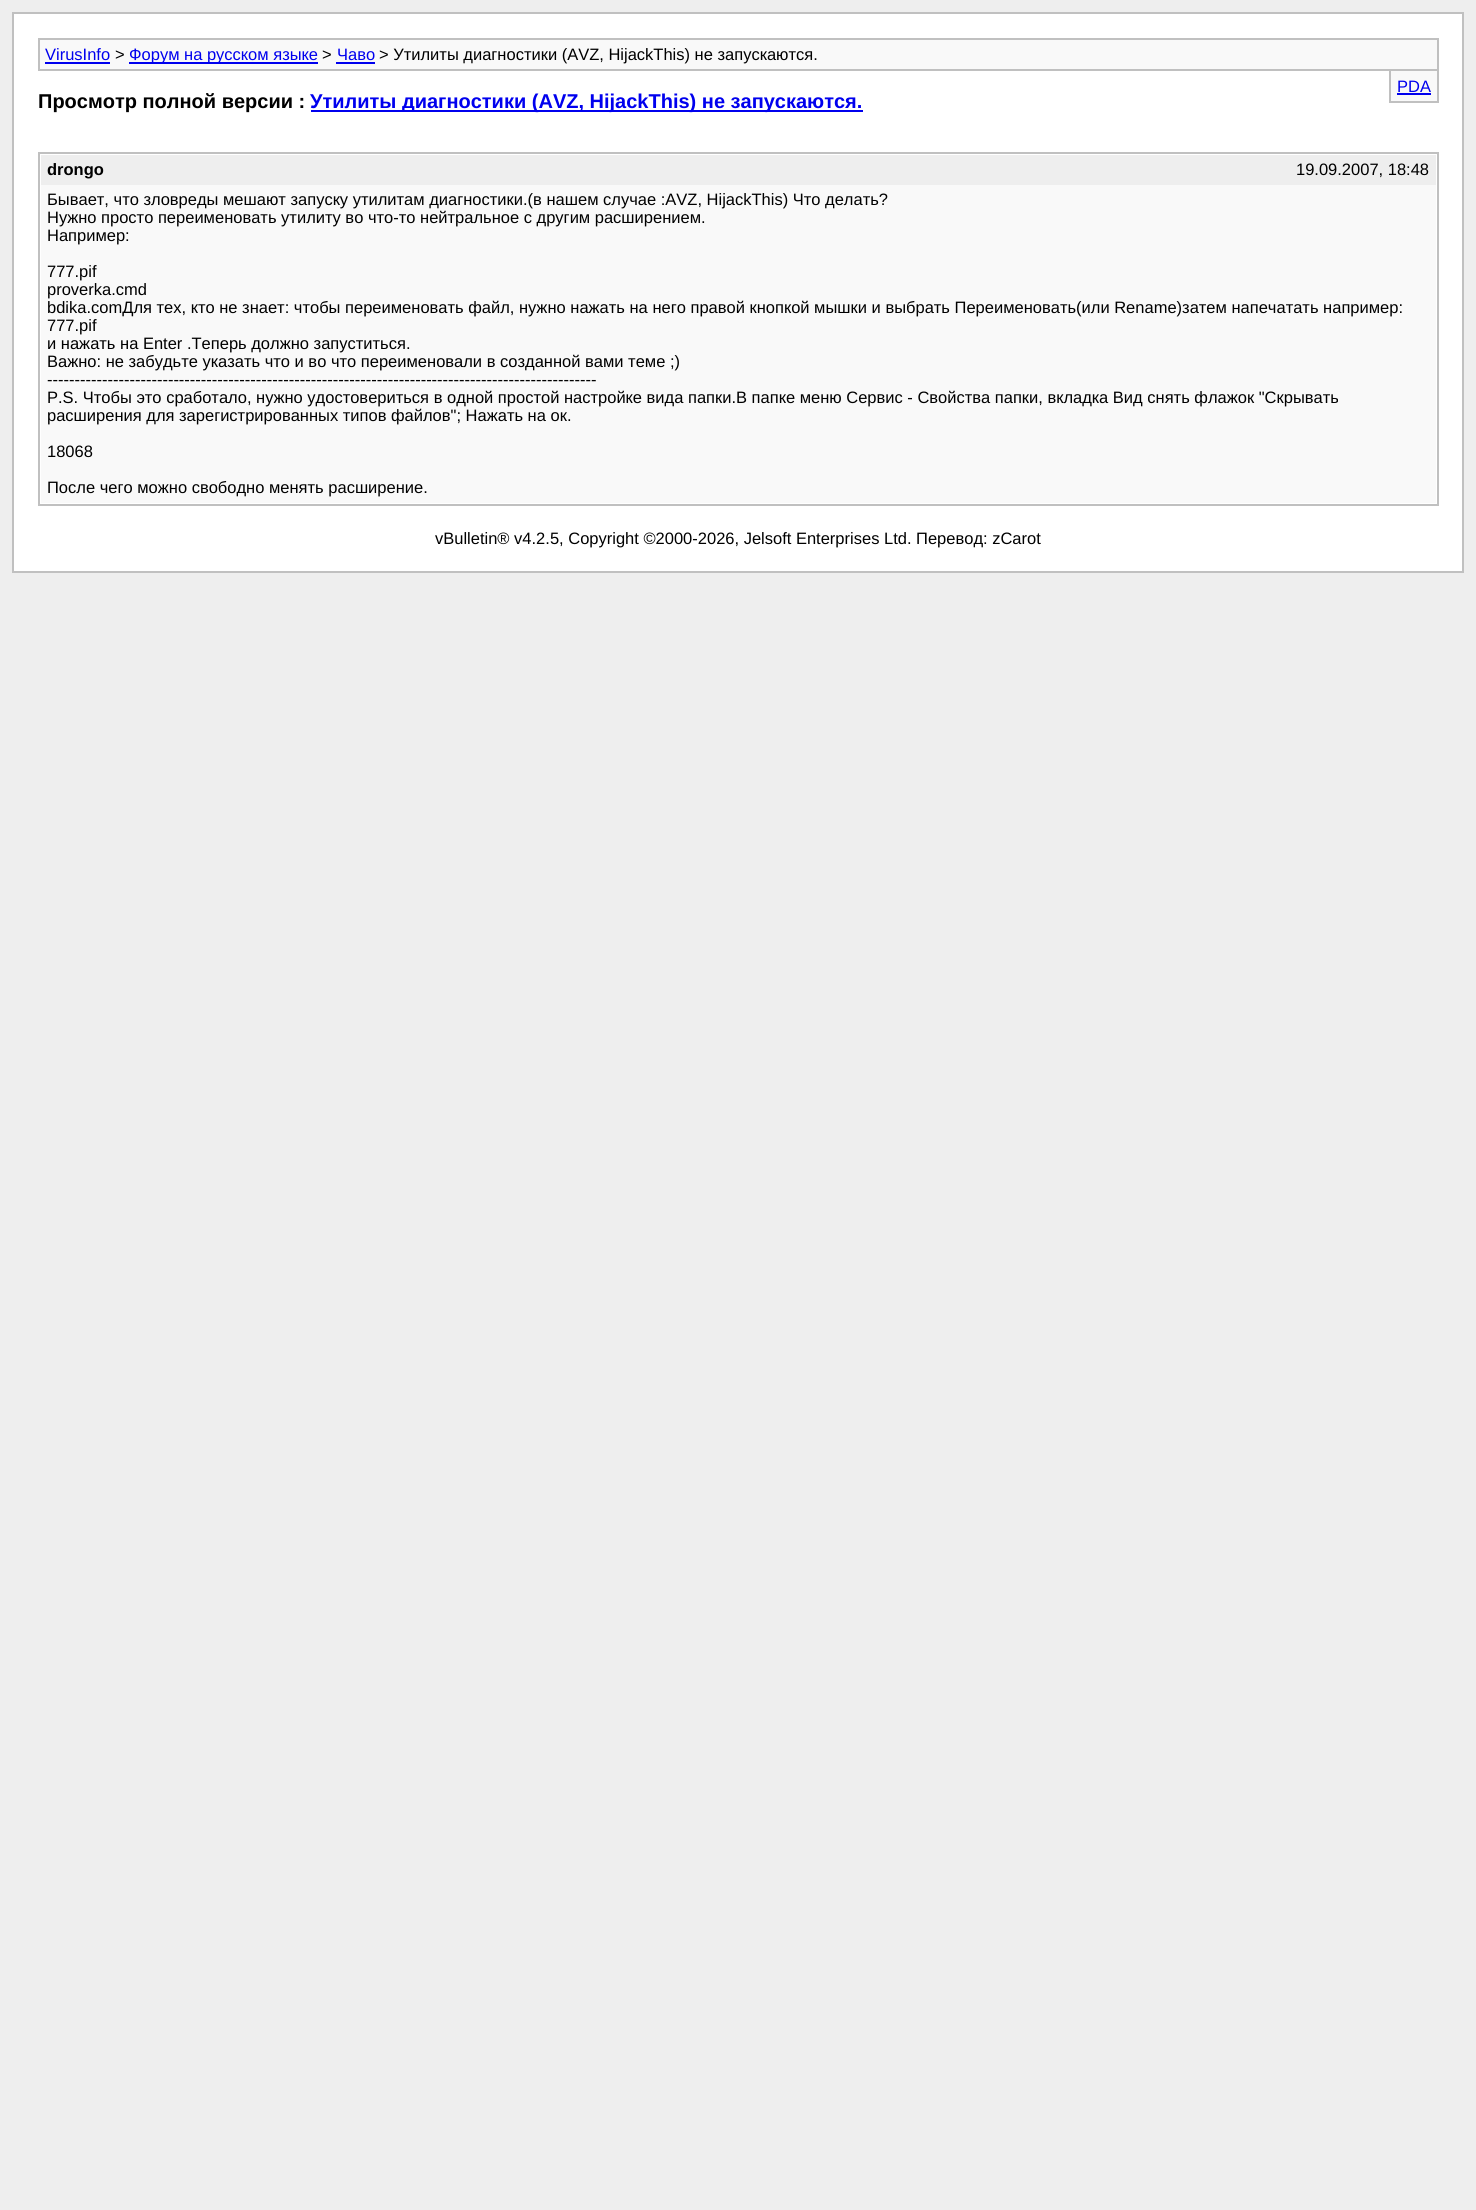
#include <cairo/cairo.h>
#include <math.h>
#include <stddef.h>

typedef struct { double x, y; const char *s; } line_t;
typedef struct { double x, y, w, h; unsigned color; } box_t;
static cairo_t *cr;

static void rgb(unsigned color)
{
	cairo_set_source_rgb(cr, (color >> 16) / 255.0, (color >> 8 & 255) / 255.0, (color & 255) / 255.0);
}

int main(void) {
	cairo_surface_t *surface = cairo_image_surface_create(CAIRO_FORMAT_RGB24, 1476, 2210);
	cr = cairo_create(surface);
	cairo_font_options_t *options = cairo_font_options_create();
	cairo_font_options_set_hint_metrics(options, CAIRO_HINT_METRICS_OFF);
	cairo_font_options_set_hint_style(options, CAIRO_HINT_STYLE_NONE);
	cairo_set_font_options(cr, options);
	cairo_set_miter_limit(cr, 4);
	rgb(0xeeeeee);
	cairo_paint(cr);
	rgb(0xffffff);
	cairo_rectangle(cr, 13, 13, 1450, 559);
	cairo_fill_preserve(cr);
	rgb(0xc0c0c0);
	cairo_stroke(cr);
	rgb(0xf9f9f9);
	cairo_rectangle(cr, 39, 39, 1399, 31);
	cairo_fill_preserve(cr);
	rgb(0xc0c0c0);
	cairo_stroke(cr);
	{
		static const box_t items[] = {
			{45, 62, 65, 2, 0x0000ee},
			{129, 62, 189, 2, 0x0000ee},
			{336, 62, 39, 2, 0x0000ee},
			{1391, 71, 46, 30, 0xf9f9f9},
			{1437, 71, 2, 31, 0xc0c0c0},
			{1389, 101, 50, 2, 0xc0c0c0},
			{1389, 71, 2, 31, 0xc0c0c0},
			{1397, 93, 34, 2, 0x0000ee},
			{311, 110, 552, 2, 0x0000ee},
		};
		for (size_t i = 0; i < sizeof items / sizeof *items; i++) {
			rgb(items[i].color);
			cairo_rectangle(cr, items[i].x, items[i].y, items[i].w, items[i].h);
			cairo_fill(cr);
		}
	}
	cairo_rectangle(cr, 39, 153, 1399, 352);
	rgb(0xc0c0c0);
	cairo_stroke(cr);
	rgb(0xeeeeee);
	cairo_rectangle(cr, 41, 155, 1395, 30);
	cairo_fill(cr);
	rgb(0xf9f9f9);
	cairo_rectangle(cr, 41, 185, 1395, 318);
	cairo_fill(cr);
	cairo_select_font_face(cr, "Liberation Sans", CAIRO_FONT_SLANT_NORMAL, CAIRO_FONT_WEIGHT_NORMAL);
	cairo_set_font_size(cr, 16.5);
	rgb(0x0000ee);
	cairo_move_to(cr, 45, 60);
	cairo_show_text(cr, "VirusInfo");
	rgb(0x000000);
	cairo_move_to(cr, 115, 60);
	cairo_show_text(cr, ">");
	rgb(0x0000ee);
	cairo_move_to(cr, 129, 60);
	cairo_show_text(cr, "Форум на русском языке");
	rgb(0x000000);
	cairo_move_to(cr, 322, 60);
	cairo_show_text(cr, ">");
	rgb(0x0000ee);
	cairo_move_to(cr, 337, 60);
	cairo_show_text(cr, "Чаво");
	rgb(0x000000);
	cairo_move_to(cr, 379, 60);
	cairo_show_text(cr, "> Утилиты диагностики (AVZ, HijackThis) не запускаются.");
	rgb(0x0000ee);
	cairo_move_to(cr, 1397, 92);
	cairo_show_text(cr, "PDA");
	cairo_select_font_face(cr, "Liberation Sans", CAIRO_FONT_SLANT_NORMAL, CAIRO_FONT_WEIGHT_BOLD);
	cairo_set_font_size(cr, 20);
	rgb(0x000000);
	cairo_move_to(cr, 38, 108);
	cairo_show_text(cr, "Просмотр полной версии :");
	rgb(0x0000ee);
	cairo_move_to(cr, 310, 108);
	cairo_show_text(cr, "Утилиты диагностики (AVZ, HijackThis) не запускаются.");
	cairo_set_font_size(cr, 16.5);
	rgb(0x000000);
	cairo_move_to(cr, 47, 175);
	cairo_show_text(cr, "drongo");
	cairo_select_font_face(cr, "Liberation Sans", CAIRO_FONT_SLANT_NORMAL, CAIRO_FONT_WEIGHT_NORMAL);
	{
		static const line_t items[] = {
			{1296, 175, "19.09.2007, 18:48"},
			{47, 205, "Бывает, что зловреды мешают запуску утилитам диагностики.(в нашем случае :AVZ, HijackThis) Что делать?"},
			{47, 223, "Нужно просто переименовать утилиту во что-то нейтральное с другим расширением."},
			{47, 241, "Например:"},
			{47, 277, "777.pif"},
			{47, 295, "proverka.cmd"},
			{47, 313, "bdika.comДля тех, кто не знает: чтобы переименовать файл, нужно нажать на него правой кнопкой мышки и выбрать Переименовать(или Rename)затем напечатать например:"},
			{47, 331, "777.pif"},
			{47, 349, "и нажать на Enter .Теперь должно запуститься."},
			{47, 367, "Важно: не забудьте указать что и во что переименовали в созданной вами теме ;)"},
			{47, 385, "----------------------------------------------------------------------------------------------------"},
			{47, 403, "P.S. Чтобы это сработало, нужно удостовериться в одной простой настройке вида папки.В папке меню Сервис - Свойства папки, вкладка Вид снять флажок \"Скрывать"},
			{47, 421, "расширения для зарегистрированных типов файлов\"; Нажать на ок."},
			{47, 457, "18068"},
			{47, 493, "После чего можно свободно менять расширение."},
			{435, 544, "vBulletin® v4.2.5, Copyright ©2000-2026, Jelsoft Enterprises Ltd. Перевод: zCarot"},
		};
		for (size_t i = 0; i < sizeof items / sizeof *items; i++) {
			cairo_move_to(cr, items[i].x, items[i].y);
			cairo_show_text(cr, items[i].s);
		}
	}
	cairo_surface_write_to_png(surface, "page.png");
	cairo_font_options_destroy(options);
	cairo_destroy(cr);
	cairo_surface_destroy(surface);
	return 0;
}
